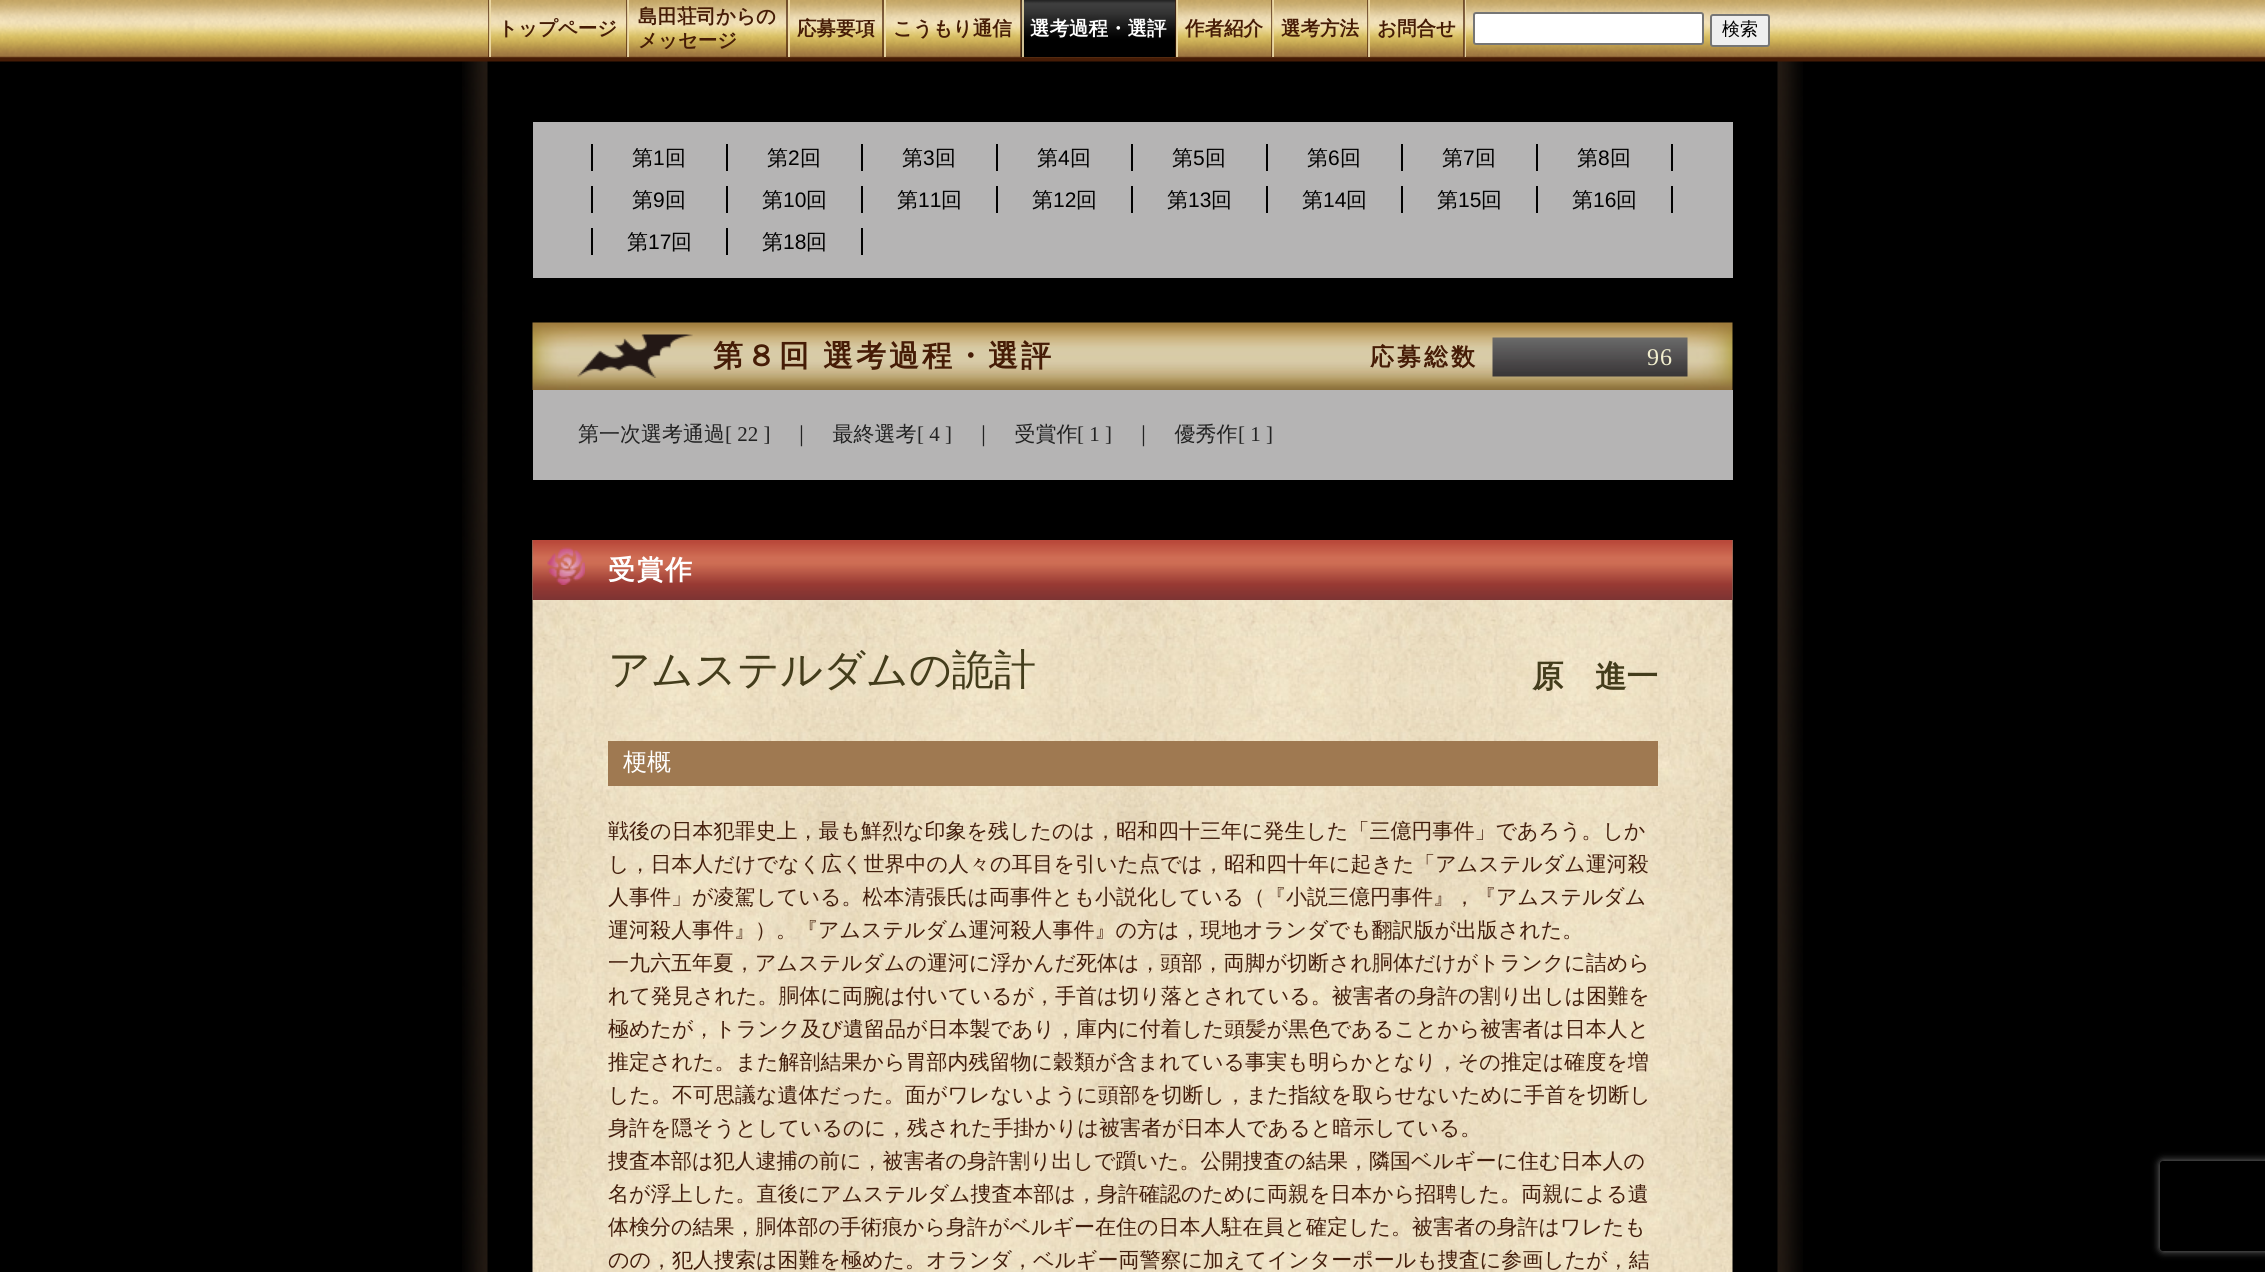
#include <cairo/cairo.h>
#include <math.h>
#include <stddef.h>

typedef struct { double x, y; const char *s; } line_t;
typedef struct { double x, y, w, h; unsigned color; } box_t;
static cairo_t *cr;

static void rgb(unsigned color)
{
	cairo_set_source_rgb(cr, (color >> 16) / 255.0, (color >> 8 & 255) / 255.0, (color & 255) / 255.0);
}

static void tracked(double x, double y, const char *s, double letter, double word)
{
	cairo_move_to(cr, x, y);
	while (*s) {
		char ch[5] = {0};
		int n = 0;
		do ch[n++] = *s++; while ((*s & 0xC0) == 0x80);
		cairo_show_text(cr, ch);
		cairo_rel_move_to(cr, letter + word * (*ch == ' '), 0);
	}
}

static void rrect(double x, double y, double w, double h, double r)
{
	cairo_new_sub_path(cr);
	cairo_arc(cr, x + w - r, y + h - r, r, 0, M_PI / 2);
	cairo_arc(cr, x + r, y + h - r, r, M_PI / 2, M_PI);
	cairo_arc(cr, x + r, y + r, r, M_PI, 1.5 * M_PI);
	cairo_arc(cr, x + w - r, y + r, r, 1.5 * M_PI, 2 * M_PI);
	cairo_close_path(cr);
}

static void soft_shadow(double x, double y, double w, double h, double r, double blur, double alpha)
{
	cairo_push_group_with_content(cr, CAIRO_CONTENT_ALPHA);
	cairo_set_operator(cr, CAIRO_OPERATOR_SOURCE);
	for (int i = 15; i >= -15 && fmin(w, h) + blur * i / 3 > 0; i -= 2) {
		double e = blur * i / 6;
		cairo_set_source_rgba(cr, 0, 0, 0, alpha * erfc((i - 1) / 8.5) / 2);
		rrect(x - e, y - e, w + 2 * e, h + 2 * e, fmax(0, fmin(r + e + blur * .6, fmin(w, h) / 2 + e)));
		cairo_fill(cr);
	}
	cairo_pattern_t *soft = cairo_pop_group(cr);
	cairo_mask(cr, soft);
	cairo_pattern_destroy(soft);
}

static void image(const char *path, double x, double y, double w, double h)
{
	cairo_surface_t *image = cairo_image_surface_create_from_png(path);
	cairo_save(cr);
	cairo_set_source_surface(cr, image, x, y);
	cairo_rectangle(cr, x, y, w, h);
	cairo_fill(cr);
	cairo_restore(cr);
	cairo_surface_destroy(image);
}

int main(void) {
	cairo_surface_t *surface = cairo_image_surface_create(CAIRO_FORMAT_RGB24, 2265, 1272);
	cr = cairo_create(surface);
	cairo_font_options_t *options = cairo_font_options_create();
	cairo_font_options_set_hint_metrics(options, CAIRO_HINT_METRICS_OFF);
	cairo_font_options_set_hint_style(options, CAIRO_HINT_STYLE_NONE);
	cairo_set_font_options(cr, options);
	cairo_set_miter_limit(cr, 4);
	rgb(0x000000);
	cairo_paint(cr);
	image("img/3.png", 462, 61, 1341, 1211);
	image("img/1.png", 0, 0, 2265, 62);
	cairo_set_source_rgba(cr, 0.949, 0.878, 0.678, 0.85);
	cairo_rectangle(cr, 1464, 0, 2, 57);
	cairo_fill(cr);
	cairo_set_source_rgba(cr, 0.275, 0.11, 0.024, 0.65);
	cairo_rectangle(cr, 488, 0, 2, 57);
	cairo_fill(cr);
	cairo_rectangle(cr, 626, 0, 2, 57);
	cairo_fill(cr);
	cairo_set_source_rgba(cr, 0.949, 0.878, 0.678, 0.85);
	cairo_rectangle(cr, 489, 0, 2, 57);
	cairo_fill(cr);
	cairo_set_source_rgba(cr, 0.275, 0.11, 0.024, 0.65);
	cairo_rectangle(cr, 786, 0, 2, 57);
	cairo_fill(cr);
	cairo_set_source_rgba(cr, 0.949, 0.878, 0.678, 0.85);
	cairo_rectangle(cr, 627, 0, 2, 57);
	cairo_fill(cr);
	cairo_set_source_rgba(cr, 0.275, 0.11, 0.024, 0.65);
	cairo_rectangle(cr, 882, 0, 2, 57);
	cairo_fill(cr);
	cairo_set_source_rgba(cr, 0.949, 0.878, 0.678, 0.85);
	cairo_rectangle(cr, 788, 0, 2, 57);
	cairo_fill(cr);
	cairo_set_source_rgba(cr, 0.275, 0.11, 0.024, 0.65);
	cairo_rectangle(cr, 1020, 0, 2, 57);
	cairo_fill(cr);
	cairo_set_source_rgba(cr, 0.949, 0.878, 0.678, 0.85);
	cairo_rectangle(cr, 884, 0, 2, 57);
	cairo_fill(cr);
	image("img/2.png", 1021, 0, 155, 57);
	cairo_set_source_rgba(cr, 0.275, 0.11, 0.024, 0.65);
	cairo_rectangle(cr, 1175, 0, 2, 57);
	cairo_fill(cr);
	cairo_set_source_rgba(cr, 0.949, 0.878, 0.678, 0.85);
	cairo_rectangle(cr, 1022, 0, 2, 57);
	cairo_fill(cr);
	cairo_set_source_rgba(cr, 0.275, 0.11, 0.024, 0.65);
	cairo_rectangle(cr, 1271, 0, 2, 57);
	cairo_fill(cr);
	cairo_set_source_rgba(cr, 0.949, 0.878, 0.678, 0.85);
	cairo_rectangle(cr, 1176, 0, 2, 57);
	cairo_fill(cr);
	cairo_set_source_rgba(cr, 0.275, 0.11, 0.024, 0.65);
	cairo_rectangle(cr, 1367, 0, 2, 57);
	cairo_fill(cr);
	cairo_set_source_rgba(cr, 0.949, 0.878, 0.678, 0.85);
	cairo_rectangle(cr, 1272, 0, 2, 57);
	cairo_fill(cr);
	cairo_set_source_rgba(cr, 0.275, 0.11, 0.024, 0.65);
	cairo_rectangle(cr, 1463, 0, 2, 57);
	cairo_fill(cr);
	cairo_set_source_rgba(cr, 0.949, 0.878, 0.678, 0.85);
	cairo_rectangle(cr, 1368, 0, 2, 57);
	cairo_fill(cr);
	rgb(0xffffff);
	rrect(1474, 13, 229, 31, 2);
	cairo_fill_preserve(cr);
	rgb(0x767676);
	cairo_stroke(cr);
	rgb(0xefefef);
	rrect(1711, 15, 58, 31, 2);
	cairo_fill_preserve(cr);
	rgb(0x767676);
	cairo_stroke(cr);
	{
		static const box_t items[] = {
			{533, 122, 1200, 156, 0xb5b4b4},
			{726, 144, 2, 27, 0x000000},
			{591, 144, 2, 27, 0x000000},
			{861, 144, 2, 27, 0x000000},
			{996, 144, 2, 27, 0x000000},
			{1131, 144, 2, 27, 0x000000},
			{1266, 144, 2, 27, 0x000000},
			{1401, 144, 2, 27, 0x000000},
			{1536, 144, 2, 27, 0x000000},
			{1671, 144, 2, 27, 0x000000},
			{726, 186, 2, 27, 0x000000},
			{591, 186, 2, 27, 0x000000},
			{861, 186, 2, 27, 0x000000},
			{996, 186, 2, 27, 0x000000},
			{1131, 186, 2, 27, 0x000000},
			{1266, 186, 2, 27, 0x000000},
			{1401, 186, 2, 27, 0x000000},
			{1536, 186, 2, 27, 0x000000},
			{1671, 186, 2, 27, 0x000000},
			{726, 228, 2, 27, 0x000000},
			{591, 228, 2, 27, 0x000000},
			{861, 228, 2, 27, 0x000000},
		};
		for (size_t i = 0; i < sizeof items / sizeof *items; i++) {
			rgb(items[i].color);
			cairo_rectangle(cr, items[i].x, items[i].y, items[i].w, items[i].h);
			cairo_fill(cr);
		}
	}
	image("img/4.png", 532, 322, 1201, 68);
	image("img/5.png", 577, 334, 116, 44);
	image("img/6.png", 1492, 337, 196, 40);
	rgb(0xb5b4b4);
	cairo_rectangle(cr, 533, 390, 1200, 90);
	cairo_fill(cr);
	image("img/7.png", 532, 540, 1201, 732);
	image("img/8.png", 532, 540, 1201, 60);
	image("img/9.png", 547, 547, 38, 38);
	rgb(0x9f7951);
	cairo_rectangle(cr, 608, 741, 1050, 45);
	cairo_fill(cr);
	cairo_save(cr);
	cairo_set_fill_rule(cr, CAIRO_FILL_RULE_EVEN_ODD);
	cairo_new_path(cr);
	cairo_move_to(cr, 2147, 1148);
	cairo_line_to(cr, 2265, 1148);
	cairo_line_to(cr, 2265, 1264);
	cairo_line_to(cr, 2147, 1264);
	cairo_close_path(cr);
	cairo_move_to(cr, 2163, 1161);
	cairo_line_to(cr, 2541, 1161);
	cairo_curve_to(cr, 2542.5, 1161, 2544, 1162.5, 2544, 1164);
	cairo_line_to(cr, 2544, 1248);
	cairo_curve_to(cr, 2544, 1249.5, 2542.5, 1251, 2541, 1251);
	cairo_line_to(cr, 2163, 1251);
	cairo_curve_to(cr, 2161.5, 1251, 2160, 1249.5, 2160, 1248);
	cairo_line_to(cr, 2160, 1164);
	cairo_curve_to(cr, 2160, 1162.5, 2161.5, 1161, 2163, 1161);
	cairo_close_path(cr);
	cairo_clip(cr);
	rgb(0x808080);
	soft_shadow(2160, 1161, 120, 90, 3, 4, 1);
	cairo_restore(cr);
	cairo_select_font_face(cr, "WenQuanYi Zen Hei", CAIRO_FONT_SLANT_NORMAL, CAIRO_FONT_WEIGHT_BOLD);
	cairo_set_font_size(cr, 19.5);
	rgb(0x461c06);
	{
		static const line_t items[] = {
			{498, 35, "トップページ"},
			{638, 23, "島田荘司からの"},
			{638, 47, "メッセージ"},
			{797, 35, "応募要項"},
			{893, 35, "こうもり通信"},
		};
		for (size_t i = 0; i < sizeof items / sizeof *items; i++) {
			cairo_move_to(cr, items[i].x, items[i].y);
			cairo_show_text(cr, items[i].s);
		}
	}
	rgb(0xffffff);
	cairo_move_to(cr, 1030, 35);
	cairo_show_text(cr, "選考過程・選評");
	rgb(0x461c06);
	{
		static const line_t items[] = {
			{1185, 35, "作者紹介"},
			{1281, 35, "選考方法"},
			{1377, 35, "お問合せ"},
		};
		for (size_t i = 0; i < sizeof items / sizeof *items; i++) {
			cairo_move_to(cr, items[i].x, items[i].y);
			cairo_show_text(cr, items[i].s);
		}
	}
	cairo_select_font_face(cr, "WenQuanYi Zen Hei Medium", CAIRO_FONT_SLANT_NORMAL, CAIRO_FONT_WEIGHT_NORMAL);
	cairo_set_font_size(cr, 18);
	rgb(0x000000);
	cairo_move_to(cr, 1722, 35);
	cairo_show_text(cr, "検索");
	cairo_set_font_size(cr, 21);
	cairo_move_to(cr, 632, 165);
	cairo_show_text(cr, "第");
	cairo_select_font_face(cr, "Liberation Sans", CAIRO_FONT_SLANT_NORMAL, CAIRO_FONT_WEIGHT_NORMAL);
	cairo_move_to(cr, 653, 165);
	cairo_show_text(cr, "1");
	cairo_select_font_face(cr, "WenQuanYi Zen Hei Medium", CAIRO_FONT_SLANT_NORMAL, CAIRO_FONT_WEIGHT_NORMAL);
	cairo_move_to(cr, 665, 165);
	cairo_show_text(cr, "回");
	cairo_move_to(cr, 767, 165);
	cairo_show_text(cr, "第");
	cairo_select_font_face(cr, "Liberation Sans", CAIRO_FONT_SLANT_NORMAL, CAIRO_FONT_WEIGHT_NORMAL);
	cairo_move_to(cr, 788, 165);
	cairo_show_text(cr, "2");
	cairo_select_font_face(cr, "WenQuanYi Zen Hei Medium", CAIRO_FONT_SLANT_NORMAL, CAIRO_FONT_WEIGHT_NORMAL);
	cairo_move_to(cr, 800, 165);
	cairo_show_text(cr, "回");
	cairo_move_to(cr, 902, 165);
	cairo_show_text(cr, "第");
	cairo_select_font_face(cr, "Liberation Sans", CAIRO_FONT_SLANT_NORMAL, CAIRO_FONT_WEIGHT_NORMAL);
	cairo_move_to(cr, 923, 165);
	cairo_show_text(cr, "3");
	cairo_select_font_face(cr, "WenQuanYi Zen Hei Medium", CAIRO_FONT_SLANT_NORMAL, CAIRO_FONT_WEIGHT_NORMAL);
	cairo_move_to(cr, 935, 165);
	cairo_show_text(cr, "回");
	cairo_move_to(cr, 1037, 165);
	cairo_show_text(cr, "第");
	cairo_select_font_face(cr, "Liberation Sans", CAIRO_FONT_SLANT_NORMAL, CAIRO_FONT_WEIGHT_NORMAL);
	cairo_move_to(cr, 1058, 165);
	cairo_show_text(cr, "4");
	cairo_select_font_face(cr, "WenQuanYi Zen Hei Medium", CAIRO_FONT_SLANT_NORMAL, CAIRO_FONT_WEIGHT_NORMAL);
	cairo_move_to(cr, 1070, 165);
	cairo_show_text(cr, "回");
	cairo_move_to(cr, 1172, 165);
	cairo_show_text(cr, "第");
	cairo_select_font_face(cr, "Liberation Sans", CAIRO_FONT_SLANT_NORMAL, CAIRO_FONT_WEIGHT_NORMAL);
	cairo_move_to(cr, 1193, 165);
	cairo_show_text(cr, "5");
	cairo_select_font_face(cr, "WenQuanYi Zen Hei Medium", CAIRO_FONT_SLANT_NORMAL, CAIRO_FONT_WEIGHT_NORMAL);
	cairo_move_to(cr, 1205, 165);
	cairo_show_text(cr, "回");
	cairo_move_to(cr, 1307, 165);
	cairo_show_text(cr, "第");
	cairo_select_font_face(cr, "Liberation Sans", CAIRO_FONT_SLANT_NORMAL, CAIRO_FONT_WEIGHT_NORMAL);
	cairo_move_to(cr, 1328, 165);
	cairo_show_text(cr, "6");
	cairo_select_font_face(cr, "WenQuanYi Zen Hei Medium", CAIRO_FONT_SLANT_NORMAL, CAIRO_FONT_WEIGHT_NORMAL);
	cairo_move_to(cr, 1340, 165);
	cairo_show_text(cr, "回");
	cairo_move_to(cr, 1442, 165);
	cairo_show_text(cr, "第");
	cairo_select_font_face(cr, "Liberation Sans", CAIRO_FONT_SLANT_NORMAL, CAIRO_FONT_WEIGHT_NORMAL);
	cairo_move_to(cr, 1463, 165);
	cairo_show_text(cr, "7");
	cairo_select_font_face(cr, "WenQuanYi Zen Hei Medium", CAIRO_FONT_SLANT_NORMAL, CAIRO_FONT_WEIGHT_NORMAL);
	cairo_move_to(cr, 1475, 165);
	cairo_show_text(cr, "回");
	cairo_move_to(cr, 1577, 165);
	cairo_show_text(cr, "第");
	cairo_select_font_face(cr, "Liberation Sans", CAIRO_FONT_SLANT_NORMAL, CAIRO_FONT_WEIGHT_NORMAL);
	cairo_move_to(cr, 1598, 165);
	cairo_show_text(cr, "8");
	cairo_select_font_face(cr, "WenQuanYi Zen Hei Medium", CAIRO_FONT_SLANT_NORMAL, CAIRO_FONT_WEIGHT_NORMAL);
	cairo_move_to(cr, 1610, 165);
	cairo_show_text(cr, "回");
	cairo_move_to(cr, 632, 207);
	cairo_show_text(cr, "第");
	cairo_select_font_face(cr, "Liberation Sans", CAIRO_FONT_SLANT_NORMAL, CAIRO_FONT_WEIGHT_NORMAL);
	cairo_move_to(cr, 653, 207);
	cairo_show_text(cr, "9");
	cairo_select_font_face(cr, "WenQuanYi Zen Hei Medium", CAIRO_FONT_SLANT_NORMAL, CAIRO_FONT_WEIGHT_NORMAL);
	cairo_move_to(cr, 665, 207);
	cairo_show_text(cr, "回");
	cairo_move_to(cr, 762, 207);
	cairo_show_text(cr, "第");
	cairo_select_font_face(cr, "Liberation Sans", CAIRO_FONT_SLANT_NORMAL, CAIRO_FONT_WEIGHT_NORMAL);
	cairo_move_to(cr, 783, 207);
	cairo_show_text(cr, "10");
	cairo_select_font_face(cr, "WenQuanYi Zen Hei Medium", CAIRO_FONT_SLANT_NORMAL, CAIRO_FONT_WEIGHT_NORMAL);
	cairo_move_to(cr, 806, 207);
	cairo_show_text(cr, "回");
	cairo_move_to(cr, 897, 207);
	cairo_show_text(cr, "第");
	cairo_select_font_face(cr, "Liberation Sans", CAIRO_FONT_SLANT_NORMAL, CAIRO_FONT_WEIGHT_NORMAL);
	cairo_move_to(cr, 918, 207);
	cairo_show_text(cr, "11");
	cairo_select_font_face(cr, "WenQuanYi Zen Hei Medium", CAIRO_FONT_SLANT_NORMAL, CAIRO_FONT_WEIGHT_NORMAL);
	cairo_move_to(cr, 941, 207);
	cairo_show_text(cr, "回");
	cairo_move_to(cr, 1032, 207);
	cairo_show_text(cr, "第");
	cairo_select_font_face(cr, "Liberation Sans", CAIRO_FONT_SLANT_NORMAL, CAIRO_FONT_WEIGHT_NORMAL);
	cairo_move_to(cr, 1053, 207);
	cairo_show_text(cr, "12");
	cairo_select_font_face(cr, "WenQuanYi Zen Hei Medium", CAIRO_FONT_SLANT_NORMAL, CAIRO_FONT_WEIGHT_NORMAL);
	cairo_move_to(cr, 1076, 207);
	cairo_show_text(cr, "回");
	cairo_move_to(cr, 1167, 207);
	cairo_show_text(cr, "第");
	cairo_select_font_face(cr, "Liberation Sans", CAIRO_FONT_SLANT_NORMAL, CAIRO_FONT_WEIGHT_NORMAL);
	cairo_move_to(cr, 1188, 207);
	cairo_show_text(cr, "13");
	cairo_select_font_face(cr, "WenQuanYi Zen Hei Medium", CAIRO_FONT_SLANT_NORMAL, CAIRO_FONT_WEIGHT_NORMAL);
	cairo_move_to(cr, 1211, 207);
	cairo_show_text(cr, "回");
	cairo_move_to(cr, 1302, 207);
	cairo_show_text(cr, "第");
	cairo_select_font_face(cr, "Liberation Sans", CAIRO_FONT_SLANT_NORMAL, CAIRO_FONT_WEIGHT_NORMAL);
	cairo_move_to(cr, 1323, 207);
	cairo_show_text(cr, "14");
	cairo_select_font_face(cr, "WenQuanYi Zen Hei Medium", CAIRO_FONT_SLANT_NORMAL, CAIRO_FONT_WEIGHT_NORMAL);
	cairo_move_to(cr, 1346, 207);
	cairo_show_text(cr, "回");
	cairo_move_to(cr, 1437, 207);
	cairo_show_text(cr, "第");
	cairo_select_font_face(cr, "Liberation Sans", CAIRO_FONT_SLANT_NORMAL, CAIRO_FONT_WEIGHT_NORMAL);
	cairo_move_to(cr, 1458, 207);
	cairo_show_text(cr, "15");
	cairo_select_font_face(cr, "WenQuanYi Zen Hei Medium", CAIRO_FONT_SLANT_NORMAL, CAIRO_FONT_WEIGHT_NORMAL);
	cairo_move_to(cr, 1481, 207);
	cairo_show_text(cr, "回");
	cairo_move_to(cr, 1572, 207);
	cairo_show_text(cr, "第");
	cairo_select_font_face(cr, "Liberation Sans", CAIRO_FONT_SLANT_NORMAL, CAIRO_FONT_WEIGHT_NORMAL);
	cairo_move_to(cr, 1593, 207);
	cairo_show_text(cr, "16");
	cairo_select_font_face(cr, "WenQuanYi Zen Hei Medium", CAIRO_FONT_SLANT_NORMAL, CAIRO_FONT_WEIGHT_NORMAL);
	cairo_move_to(cr, 1616, 207);
	cairo_show_text(cr, "回");
	cairo_move_to(cr, 627, 249);
	cairo_show_text(cr, "第");
	cairo_select_font_face(cr, "Liberation Sans", CAIRO_FONT_SLANT_NORMAL, CAIRO_FONT_WEIGHT_NORMAL);
	cairo_move_to(cr, 648, 249);
	cairo_show_text(cr, "17");
	cairo_select_font_face(cr, "WenQuanYi Zen Hei Medium", CAIRO_FONT_SLANT_NORMAL, CAIRO_FONT_WEIGHT_NORMAL);
	cairo_move_to(cr, 671, 249);
	cairo_show_text(cr, "回");
	cairo_move_to(cr, 762, 249);
	cairo_show_text(cr, "第");
	cairo_select_font_face(cr, "Liberation Sans", CAIRO_FONT_SLANT_NORMAL, CAIRO_FONT_WEIGHT_NORMAL);
	cairo_move_to(cr, 783, 249);
	cairo_show_text(cr, "18");
	cairo_select_font_face(cr, "WenQuanYi Zen Hei Medium", CAIRO_FONT_SLANT_NORMAL, CAIRO_FONT_WEIGHT_NORMAL);
	cairo_move_to(cr, 806, 249);
	cairo_show_text(cr, "回");
	cairo_select_font_face(cr, "WenQuanYi Zen Hei", CAIRO_FONT_SLANT_NORMAL, CAIRO_FONT_WEIGHT_BOLD);
	cairo_set_font_size(cr, 30);
	rgb(0x461c06);
	tracked(713, 366, "第８回 選考過程・選評", 3, -1);
	cairo_set_font_size(cr, 24);
	tracked(1370, 365, "応募総数", 3, 0);
	cairo_select_font_face(cr, "Liberation Serif", CAIRO_FONT_SLANT_NORMAL, CAIRO_FONT_WEIGHT_NORMAL);
	rgb(0xf1eece);
	tracked(1647, 365, "96", 1, 0);
	cairo_select_font_face(cr, "WenQuanYi Zen Hei Medium", CAIRO_FONT_SLANT_NORMAL, CAIRO_FONT_WEIGHT_NORMAL);
	cairo_set_font_size(cr, 21);
	rgb(0x222222);
	cairo_move_to(cr, 578, 441);
	cairo_show_text(cr, "第一次選考通過");
	cairo_select_font_face(cr, "Liberation Serif", CAIRO_FONT_SLANT_NORMAL, CAIRO_FONT_WEIGHT_NORMAL);
	cairo_move_to(cr, 725, 441);
	cairo_show_text(cr, "[ 22 ]");
	cairo_select_font_face(cr, "WenQuanYi Zen Hei Medium", CAIRO_FONT_SLANT_NORMAL, CAIRO_FONT_WEIGHT_NORMAL);
	cairo_move_to(cr, 791, 441);
	cairo_show_text(cr, "｜　最終選考");
	cairo_select_font_face(cr, "Liberation Serif", CAIRO_FONT_SLANT_NORMAL, CAIRO_FONT_WEIGHT_NORMAL);
	cairo_move_to(cr, 917, 441);
	cairo_show_text(cr, "[ 4 ]");
	cairo_select_font_face(cr, "WenQuanYi Zen Hei Medium", CAIRO_FONT_SLANT_NORMAL, CAIRO_FONT_WEIGHT_NORMAL);
	cairo_move_to(cr, 973, 441);
	cairo_show_text(cr, "｜　受賞作");
	cairo_select_font_face(cr, "Liberation Serif", CAIRO_FONT_SLANT_NORMAL, CAIRO_FONT_WEIGHT_NORMAL);
	cairo_move_to(cr, 1077, 441);
	cairo_show_text(cr, "[ 1 ]");
	cairo_select_font_face(cr, "WenQuanYi Zen Hei Medium", CAIRO_FONT_SLANT_NORMAL, CAIRO_FONT_WEIGHT_NORMAL);
	cairo_move_to(cr, 1133, 441);
	cairo_show_text(cr, "｜　優秀作");
	cairo_select_font_face(cr, "Liberation Serif", CAIRO_FONT_SLANT_NORMAL, CAIRO_FONT_WEIGHT_NORMAL);
	cairo_move_to(cr, 1238, 441);
	cairo_show_text(cr, "[ 1 ]");
	cairo_select_font_face(cr, "WenQuanYi Zen Hei", CAIRO_FONT_SLANT_NORMAL, CAIRO_FONT_WEIGHT_BOLD);
	cairo_set_font_size(cr, 27);
	rgb(0xffffff);
	tracked(608, 579, "受賞作", 1.5, 0);
	cairo_select_font_face(cr, "WenQuanYi Zen Hei Medium", CAIRO_FONT_SLANT_NORMAL, CAIRO_FONT_WEIGHT_NORMAL);
	cairo_set_font_size(cr, 42);
	rgb(0x433c1b);
	cairo_move_to(cr, 608, 684);
	cairo_show_text(cr, "アムステルダムの詭計");
	cairo_select_font_face(cr, "WenQuanYi Zen Hei", CAIRO_FONT_SLANT_NORMAL, CAIRO_FONT_WEIGHT_BOLD);
	cairo_set_font_size(cr, 31.5);
	cairo_move_to(cr, 1532, 687);
	cairo_show_text(cr, "原　進一");
	cairo_select_font_face(cr, "WenQuanYi Zen Hei Medium", CAIRO_FONT_SLANT_NORMAL, CAIRO_FONT_WEIGHT_NORMAL);
	cairo_set_font_size(cr, 24);
	rgb(0xffffff);
	cairo_move_to(cr, 623, 770);
	cairo_show_text(cr, "梗概");
	cairo_set_font_size(cr, 21);
	rgb(0x431e0c);
	{
		static const line_t items[] = {
			{608, 838, "戦後の日本犯罪史上，最も鮮烈な印象を残したのは，昭和四十三年に発生した「三億円事件」であろう。しか"},
			{608, 871, "し，日本人だけでなく広く世界中の人々の耳目を引いた点では，昭和四十年に起きた「アムステルダム運河殺"},
			{608, 904, "人事件」が凌駕している。松本清張氏は両事件とも小説化している（『小説三億円事件』，『アムステルダム"},
			{608, 937, "運河殺人事件』）。『アムステルダム運河殺人事件』の方は，現地オランダでも翻訳版が出版された。"},
			{608, 970, "一九六五年夏，アムステルダムの運河に浮かんだ死体は，頭部，両脚が切断され胴体だけがトランクに詰めら"},
			{608, 1003, "れて発見された。胴体に両腕は付いているが，手首は切り落とされている。被害者の身許の割り出しは困難を"},
			{608, 1036, "極めたが，トランク及び遺留品が日本製であり，庫内に付着した頭髪が黒色であることから被害者は日本人と"},
			{608, 1069, "推定された。また解剖結果から胃部内残留物に穀類が含まれている事実も明らかとなり，その推定は確度を増"},
			{608, 1102, "した。不可思議な遺体だった。面がワレないように頭部を切断し，また指紋を取らせないために手首を切断し"},
			{608, 1135, "身許を隠そうとしているのに，残された手掛かりは被害者が日本人であると暗示している。"},
			{608, 1168, "捜査本部は犯人逮捕の前に，被害者の身許割り出しで躓いた。公開捜査の結果，隣国ベルギーに住む日本人の"},
			{608, 1201, "名が浮上した。直後にアムステルダム捜査本部は，身許確認のために両親を日本から招聘した。両親による遺"},
			{608, 1234, "体検分の結果，胴体部の手術痕から身許がベルギー在住の日本人駐在員と確定した。被害者の身許はワレたも"},
			{608, 1267, "のの，犯人捜索は困難を極めた。オランダ，ベルギー両警察に加えてインターポールも捜査に参画したが，結"},
		};
		for (size_t i = 0; i < sizeof items / sizeof *items; i++) {
			cairo_move_to(cr, items[i].x, items[i].y);
			cairo_show_text(cr, items[i].s);
		}
	}
	cairo_surface_write_to_png(surface, "page.png");
	cairo_font_options_destroy(options);
	cairo_destroy(cr);
	cairo_surface_destroy(surface);
	return 0;
}
